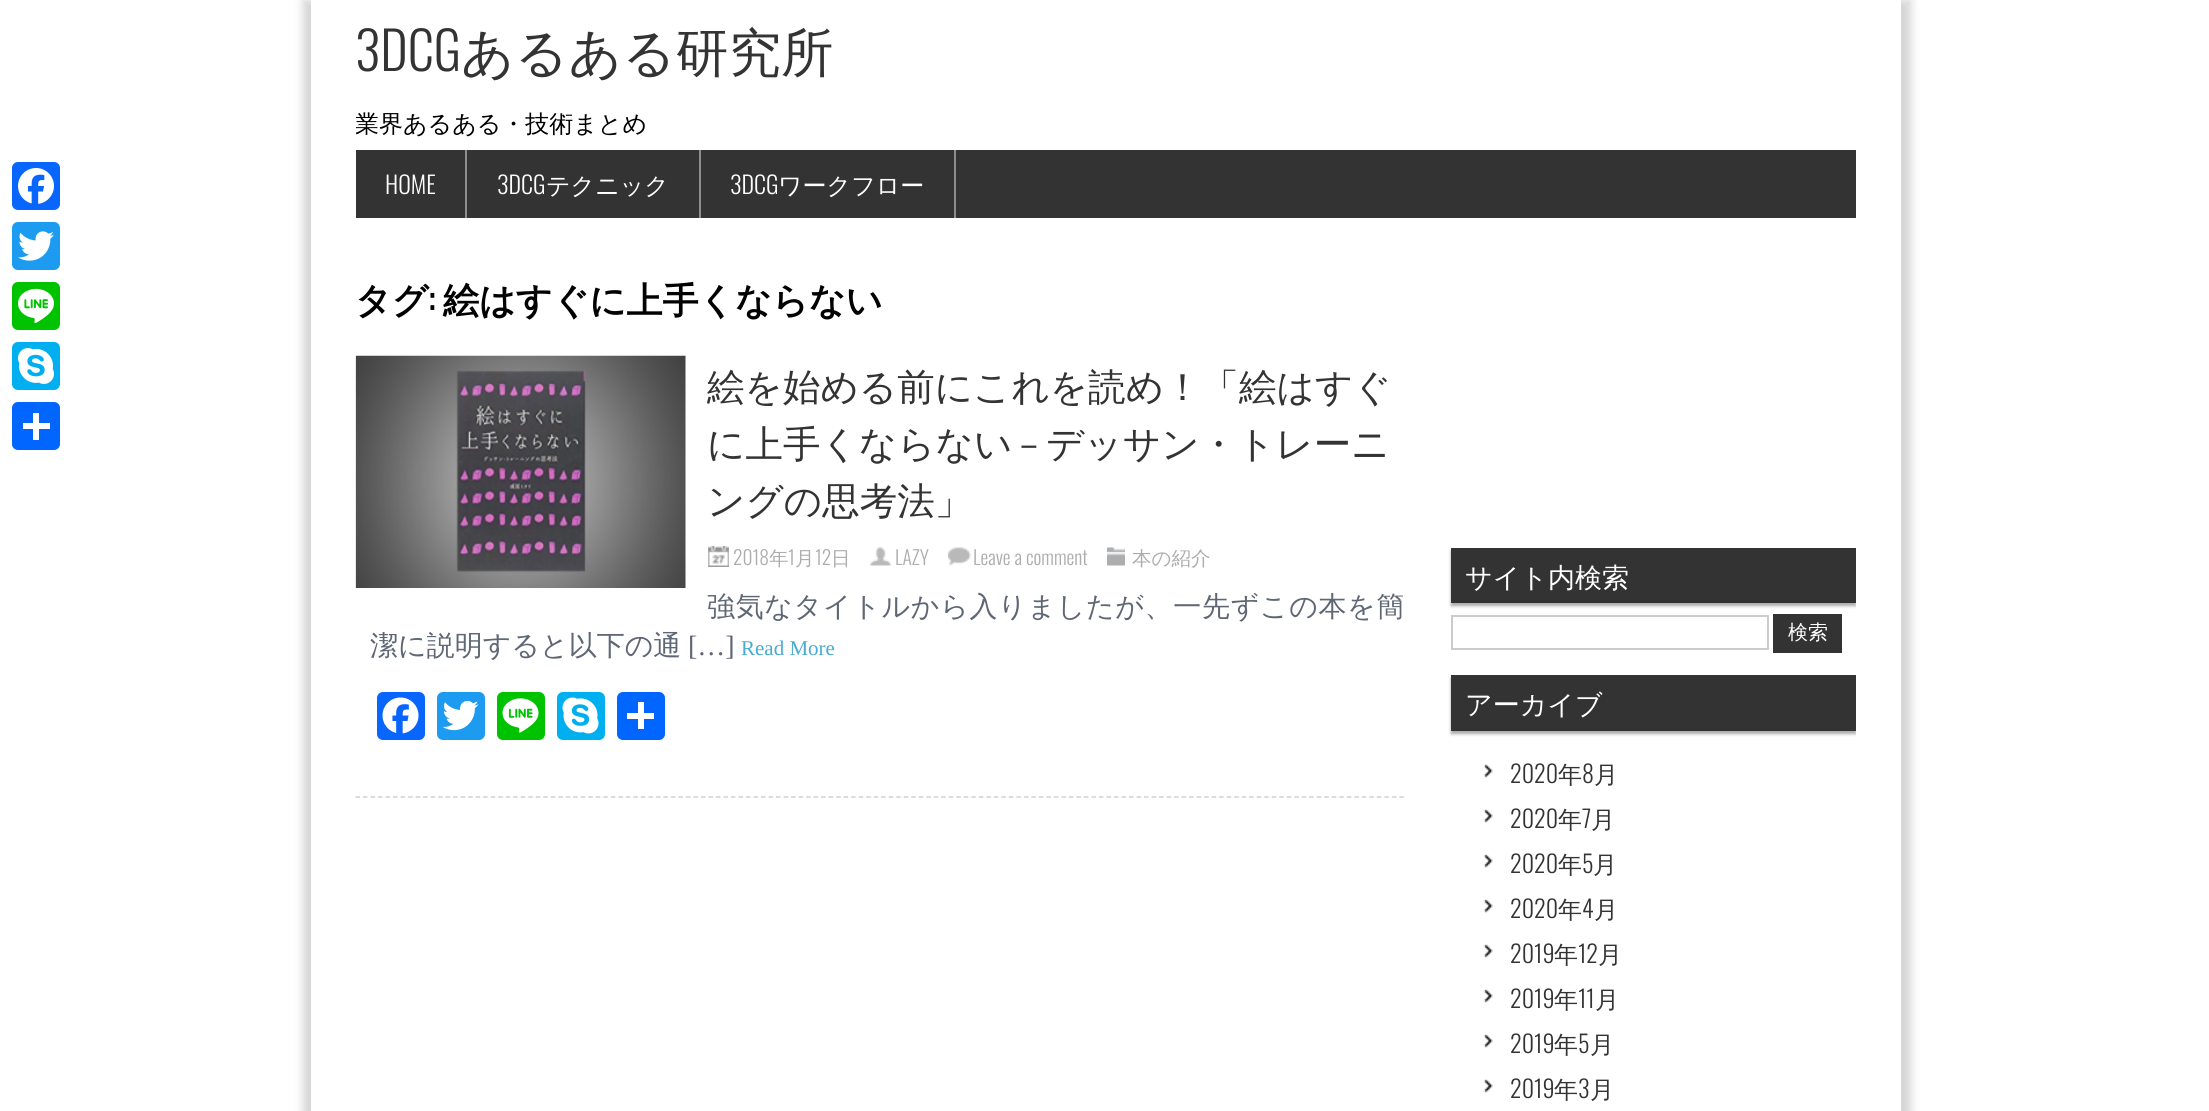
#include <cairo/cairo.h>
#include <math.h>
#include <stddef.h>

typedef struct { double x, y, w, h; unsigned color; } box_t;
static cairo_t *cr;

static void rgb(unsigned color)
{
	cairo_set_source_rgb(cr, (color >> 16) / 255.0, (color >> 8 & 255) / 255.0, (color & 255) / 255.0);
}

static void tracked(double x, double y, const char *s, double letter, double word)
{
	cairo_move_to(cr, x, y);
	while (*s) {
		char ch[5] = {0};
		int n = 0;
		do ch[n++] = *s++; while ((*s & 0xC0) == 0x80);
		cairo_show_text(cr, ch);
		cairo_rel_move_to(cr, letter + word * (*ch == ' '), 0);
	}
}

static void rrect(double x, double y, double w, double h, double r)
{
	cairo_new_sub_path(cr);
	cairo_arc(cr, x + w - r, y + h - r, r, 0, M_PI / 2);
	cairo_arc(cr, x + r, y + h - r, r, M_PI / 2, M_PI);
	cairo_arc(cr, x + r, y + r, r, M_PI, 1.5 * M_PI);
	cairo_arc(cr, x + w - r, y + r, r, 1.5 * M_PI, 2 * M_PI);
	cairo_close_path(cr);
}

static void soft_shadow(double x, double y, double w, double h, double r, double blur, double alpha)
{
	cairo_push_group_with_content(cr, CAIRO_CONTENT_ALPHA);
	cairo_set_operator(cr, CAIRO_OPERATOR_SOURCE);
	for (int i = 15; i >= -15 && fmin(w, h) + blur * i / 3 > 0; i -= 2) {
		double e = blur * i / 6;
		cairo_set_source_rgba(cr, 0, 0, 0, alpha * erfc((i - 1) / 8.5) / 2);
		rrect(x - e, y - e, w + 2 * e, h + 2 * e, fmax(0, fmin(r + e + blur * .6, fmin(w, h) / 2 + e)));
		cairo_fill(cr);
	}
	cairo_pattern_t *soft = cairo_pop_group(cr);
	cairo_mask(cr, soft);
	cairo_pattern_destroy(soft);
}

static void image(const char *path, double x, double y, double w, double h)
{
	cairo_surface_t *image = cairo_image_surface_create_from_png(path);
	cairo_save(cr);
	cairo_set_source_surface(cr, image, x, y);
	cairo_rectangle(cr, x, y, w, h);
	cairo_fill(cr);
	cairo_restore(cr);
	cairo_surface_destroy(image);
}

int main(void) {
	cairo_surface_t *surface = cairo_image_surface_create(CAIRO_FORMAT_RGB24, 2209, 1111);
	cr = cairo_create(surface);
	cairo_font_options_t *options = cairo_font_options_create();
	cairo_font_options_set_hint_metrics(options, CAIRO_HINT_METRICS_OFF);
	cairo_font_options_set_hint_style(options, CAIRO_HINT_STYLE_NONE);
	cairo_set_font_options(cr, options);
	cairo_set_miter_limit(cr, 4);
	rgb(0xffffff);
	cairo_paint(cr);
	rgb(0x0866ff);
	rrect(12, 162, 48, 48, 6);
	cairo_fill(cr);
	image("img/1.png", 18, 168, 36, 36);
	rgb(0x1d9bf0);
	rrect(12, 222, 48, 48, 6);
	cairo_fill(cr);
	image("img/2.png", 18, 231, 36, 30);
	rgb(0x00c300);
	rrect(12, 282, 48, 48, 6);
	cairo_fill(cr);
	image("img/3.png", 18, 288, 36, 36);
	rgb(0x00aff0);
	rrect(12, 342, 48, 48, 6);
	cairo_fill(cr);
	image("img/4.png", 18, 348, 36, 36);
	rgb(0x0166ff);
	rrect(12, 402, 48, 48, 6);
	cairo_fill(cr);
	rgb(0xffffff);
	cairo_rectangle(cr, 33, 413, 6, 27);
	cairo_fill(cr);
	cairo_rectangle(cr, 23, 423, 27, 6);
	cairo_fill(cr);
	rgb(0xd5d5d5);
	soft_shadow(303, 0, 1608, 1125, 0, 4.5, 1);
	{
		static const box_t items[] = {
			{311, 0, 1590, 1111, 0xffffff},
			{356, 150, 1500, 68, 0x333333},
			{465, 150, 2, 68, 0x8f8c8c},
			{699, 150, 2, 68, 0x8f8c8c},
			{954, 150, 2, 68, 0x8f8c8c},
		};
		for (size_t i = 0; i < sizeof items / sizeof *items; i++) {
			rgb(items[i].color);
			cairo_rectangle(cr, items[i].x, items[i].y, items[i].w, items[i].h);
			cairo_fill(cr);
		}
	}
	cairo_new_path(cr);
	cairo_move_to(cr, 355.5, 797);
	cairo_line_to(cr, 1405.5, 797);
	rgb(0xccd2d8);
	cairo_set_line_width(cr, 1.5);
	cairo_set_dash(cr, (double[]){4.5, 3.01}, 2, 0);
	cairo_stroke(cr);
	image("img/5.png", 355, 355, 331, 233);
	image("img/6.png", 708, 546, 21, 21);
	image("img/7.png", 870, 547, 21, 19);
	image("img/8.png", 948, 547, 23, 19);
	image("img/9.png", 1107, 547, 18, 19);
	rgb(0x0866ff);
	rrect(377, 692, 48, 48, 6);
	cairo_fill(cr);
	image("img/10.png", 382, 697, 37, 37);
	rgb(0x1d9bf0);
	rrect(437, 692, 48, 48, 6);
	cairo_fill(cr);
	image("img/11.png", 442, 700, 37, 31);
	rgb(0x00c300);
	rrect(497, 692, 48, 48, 6);
	cairo_fill(cr);
	image("img/12.png", 502, 698, 37, 35);
	rgb(0x00aff0);
	rrect(557, 692, 48, 48, 6);
	cairo_fill(cr);
	image("img/13.png", 562, 697, 37, 37);
	rgb(0x0166ff);
	rrect(617, 692, 48, 48, 6);
	cairo_fill(cr);
	rgb(0xffffff);
	cairo_rectangle(cr, 638, 702, 6, 27);
	cairo_fill(cr);
	cairo_rectangle(cr, 627, 713, 27, 6);
	cairo_fill(cr);
	cairo_save(cr);
	cairo_rectangle(cr, 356, 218, 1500, 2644);
	cairo_clip(cr);
	rgb(0xaaaaaa);
	soft_shadow(1451, 551, 405, 55, 0, 1.5, 1);
	cairo_restore(cr);
	rgb(0x333333);
	cairo_rectangle(cr, 1451, 548, 405, 55);
	cairo_fill(cr);
	cairo_rectangle(cr, 1452, 616, 316, 33);
	rgb(0xcccccc);
	cairo_set_line_width(cr, 2);
	cairo_set_dash(cr, NULL, 0, 0);
	cairo_stroke(cr);
	rgb(0x333333);
	cairo_rectangle(cr, 1773, 614, 69, 39);
	cairo_fill(cr);
	cairo_save(cr);
	cairo_rectangle(cr, 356, 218, 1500, 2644);
	cairo_clip(cr);
	rgb(0xaaaaaa);
	soft_shadow(1451, 678, 405, 56, 0, 1.5, 1);
	cairo_restore(cr);
	cairo_rectangle(cr, 1451, 675, 405, 56);
	cairo_fill(cr);
	image("img/14.png", 1483, 764, 10, 14);
	image("img/14.png", 1483, 809, 10, 14);
	image("img/14.png", 1483, 854, 10, 14);
	image("img/14.png", 1483, 899, 10, 14);
	image("img/14.png", 1483, 944, 10, 14);
	image("img/14.png", 1483, 989, 10, 14);
	image("img/14.png", 1483, 1034, 10, 14);
	image("img/14.png", 1483, 1079, 10, 14);
	cairo_select_font_face(cr, "Oswald Light", CAIRO_FONT_SLANT_NORMAL, CAIRO_FONT_WEIGHT_NORMAL);
	cairo_set_font_size(cr, 52.5);
	cairo_move_to(cr, 355, 71);
	cairo_show_text(cr, "3DCG");
	cairo_select_font_face(cr, "WenQuanYi Zen Hei Medium", CAIRO_FONT_SLANT_NORMAL, CAIRO_FONT_WEIGHT_NORMAL);
	cairo_move_to(cr, 461, 71);
	cairo_show_text(cr, "あるある研究所");
	cairo_save(cr);
	cairo_rectangle(cr, 356, 8, 798, 133);
	cairo_clip(cr);
	cairo_set_font_size(cr, 24);
	rgb(0x000000);
	cairo_move_to(cr, 355, 132);
	cairo_show_text(cr, "業界あるある・技術まとめ");
	cairo_restore(cr);
	cairo_select_font_face(cr, "Oswald Light", CAIRO_FONT_SLANT_NORMAL, CAIRO_FONT_WEIGHT_NORMAL);
	cairo_set_font_size(cr, 24);
	rgb(0xffffff);
	cairo_move_to(cr, 385, 194);
	cairo_show_text(cr, "HOME");
	cairo_move_to(cr, 497, 194);
	cairo_show_text(cr, "3DCG");
	cairo_select_font_face(cr, "WenQuanYi Zen Hei Medium", CAIRO_FONT_SLANT_NORMAL, CAIRO_FONT_WEIGHT_NORMAL);
	cairo_move_to(cr, 546, 194);
	cairo_show_text(cr, "テクニック");
	cairo_select_font_face(cr, "Oswald Light", CAIRO_FONT_SLANT_NORMAL, CAIRO_FONT_WEIGHT_NORMAL);
	cairo_move_to(cr, 730, 194);
	cairo_show_text(cr, "3DCG");
	cairo_select_font_face(cr, "WenQuanYi Zen Hei Medium", CAIRO_FONT_SLANT_NORMAL, CAIRO_FONT_WEIGHT_NORMAL);
	cairo_move_to(cr, 778, 194);
	cairo_show_text(cr, "ワークフロー");
	cairo_select_font_face(cr, "WenQuanYi Zen Hei", CAIRO_FONT_SLANT_NORMAL, CAIRO_FONT_WEIGHT_BOLD);
	cairo_set_font_size(cr, 36);
	rgb(0x000000);
	cairo_move_to(cr, 355, 313);
	cairo_show_text(cr, "タグ");
	cairo_select_font_face(cr, "Oswald", CAIRO_FONT_SLANT_NORMAL, CAIRO_FONT_WEIGHT_BOLD);
	cairo_move_to(cr, 428, 313);
	cairo_show_text(cr, ":");
	cairo_select_font_face(cr, "WenQuanYi Zen Hei", CAIRO_FONT_SLANT_NORMAL, CAIRO_FONT_WEIGHT_BOLD);
	cairo_move_to(cr, 443, 313);
	cairo_show_text(cr, "絵はすぐに上手くならない");
	cairo_select_font_face(cr, "WenQuanYi Zen Hei Medium", CAIRO_FONT_SLANT_NORMAL, CAIRO_FONT_WEIGHT_NORMAL);
	cairo_set_font_size(cr, 37.5);
	rgb(0x333333);
	cairo_move_to(cr, 707, 400);
	cairo_show_text(cr, "絵を始める前にこれを読め！「絵はすぐ");
	cairo_move_to(cr, 707, 457);
	cairo_show_text(cr, "に上手くならない");
	cairo_select_font_face(cr, "Oswald Light", CAIRO_FONT_SLANT_NORMAL, CAIRO_FONT_WEIGHT_NORMAL);
	cairo_move_to(cr, 1020, 457);
	cairo_show_text(cr, "–");
	cairo_select_font_face(cr, "WenQuanYi Zen Hei Medium", CAIRO_FONT_SLANT_NORMAL, CAIRO_FONT_WEIGHT_NORMAL);
	cairo_move_to(cr, 1046, 457);
	cairo_show_text(cr, "デッサン・トレーニ");
	cairo_move_to(cr, 707, 514);
	cairo_show_text(cr, "ングの思考法」");
	cairo_select_font_face(cr, "Oswald Light", CAIRO_FONT_SLANT_NORMAL, CAIRO_FONT_WEIGHT_NORMAL);
	cairo_set_font_size(cr, 19.5);
	rgb(0xabadaf);
	cairo_move_to(cr, 733, 565);
	cairo_show_text(cr, "2018");
	cairo_select_font_face(cr, "WenQuanYi Zen Hei Medium", CAIRO_FONT_SLANT_NORMAL, CAIRO_FONT_WEIGHT_NORMAL);
	cairo_move_to(cr, 769, 565);
	cairo_show_text(cr, "年");
	cairo_select_font_face(cr, "Oswald Light", CAIRO_FONT_SLANT_NORMAL, CAIRO_FONT_WEIGHT_NORMAL);
	cairo_move_to(cr, 788, 565);
	cairo_show_text(cr, "1");
	cairo_select_font_face(cr, "WenQuanYi Zen Hei Medium", CAIRO_FONT_SLANT_NORMAL, CAIRO_FONT_WEIGHT_NORMAL);
	cairo_move_to(cr, 795, 565);
	cairo_show_text(cr, "月");
	cairo_select_font_face(cr, "Oswald Light", CAIRO_FONT_SLANT_NORMAL, CAIRO_FONT_WEIGHT_NORMAL);
	cairo_move_to(cr, 815, 565);
	cairo_show_text(cr, "12");
	cairo_select_font_face(cr, "WenQuanYi Zen Hei Medium", CAIRO_FONT_SLANT_NORMAL, CAIRO_FONT_WEIGHT_NORMAL);
	cairo_move_to(cr, 831, 565);
	cairo_show_text(cr, "日");
	cairo_select_font_face(cr, "Oswald Light", CAIRO_FONT_SLANT_NORMAL, CAIRO_FONT_WEIGHT_NORMAL);
	cairo_move_to(cr, 895, 565);
	cairo_show_text(cr, "LAZY");
	cairo_move_to(cr, 973, 565);
	cairo_show_text(cr, "Leave a comment");
	cairo_select_font_face(cr, "WenQuanYi Zen Hei Medium", CAIRO_FONT_SLANT_NORMAL, CAIRO_FONT_WEIGHT_NORMAL);
	cairo_move_to(cr, 1132, 565);
	cairo_show_text(cr, "本の紹介");
	cairo_set_font_size(cr, 28);
	rgb(0x5f6774);
	tracked(707, 616, "強気なタイトルから入りましたが、一先ずこの本を簡", 0.65, 0);
	cairo_move_to(cr, 370, 655);
	cairo_show_text(cr, "潔に説明すると以下の通");
	cairo_select_font_face(cr, "Liberation Serif", CAIRO_FONT_SLANT_NORMAL, CAIRO_FONT_WEIGHT_NORMAL);
	cairo_move_to(cr, 688, 655);
	cairo_show_text(cr, "[…]");
	cairo_set_font_size(cr, 21);
	rgb(0x47abd2);
	cairo_move_to(cr, 741, 655);
	cairo_show_text(cr, "Read More");
	cairo_select_font_face(cr, "WenQuanYi Zen Hei Medium", CAIRO_FONT_SLANT_NORMAL, CAIRO_FONT_WEIGHT_NORMAL);
	cairo_set_font_size(cr, 27);
	rgb(0xffffff);
	cairo_move_to(cr, 1465, 587);
	cairo_show_text(cr, "サイト内検索");
	cairo_set_font_size(cr, 20);
	cairo_move_to(cr, 1788, 639);
	cairo_show_text(cr, "検索");
	cairo_set_font_size(cr, 27);
	cairo_move_to(cr, 1465, 714);
	cairo_show_text(cr, "アーカイブ");
	cairo_select_font_face(cr, "Oswald Light", CAIRO_FONT_SLANT_NORMAL, CAIRO_FONT_WEIGHT_NORMAL);
	cairo_set_font_size(cr, 24);
	rgb(0x333333);
	cairo_move_to(cr, 1510, 783);
	cairo_show_text(cr, "2020");
	cairo_select_font_face(cr, "WenQuanYi Zen Hei Medium", CAIRO_FONT_SLANT_NORMAL, CAIRO_FONT_WEIGHT_NORMAL);
	cairo_move_to(cr, 1558, 783);
	cairo_show_text(cr, "年");
	cairo_select_font_face(cr, "Oswald Light", CAIRO_FONT_SLANT_NORMAL, CAIRO_FONT_WEIGHT_NORMAL);
	cairo_move_to(cr, 1582, 783);
	cairo_show_text(cr, "8");
	cairo_select_font_face(cr, "WenQuanYi Zen Hei Medium", CAIRO_FONT_SLANT_NORMAL, CAIRO_FONT_WEIGHT_NORMAL);
	cairo_move_to(cr, 1594, 783);
	cairo_show_text(cr, "月");
	cairo_select_font_face(cr, "Oswald Light", CAIRO_FONT_SLANT_NORMAL, CAIRO_FONT_WEIGHT_NORMAL);
	cairo_move_to(cr, 1510, 828);
	cairo_show_text(cr, "2020");
	cairo_select_font_face(cr, "WenQuanYi Zen Hei Medium", CAIRO_FONT_SLANT_NORMAL, CAIRO_FONT_WEIGHT_NORMAL);
	cairo_move_to(cr, 1558, 828);
	cairo_show_text(cr, "年");
	cairo_select_font_face(cr, "Oswald Light", CAIRO_FONT_SLANT_NORMAL, CAIRO_FONT_WEIGHT_NORMAL);
	cairo_move_to(cr, 1582, 828);
	cairo_show_text(cr, "7");
	cairo_select_font_face(cr, "WenQuanYi Zen Hei Medium", CAIRO_FONT_SLANT_NORMAL, CAIRO_FONT_WEIGHT_NORMAL);
	cairo_move_to(cr, 1591, 828);
	cairo_show_text(cr, "月");
	cairo_select_font_face(cr, "Oswald Light", CAIRO_FONT_SLANT_NORMAL, CAIRO_FONT_WEIGHT_NORMAL);
	cairo_move_to(cr, 1510, 873);
	cairo_show_text(cr, "2020");
	cairo_select_font_face(cr, "WenQuanYi Zen Hei Medium", CAIRO_FONT_SLANT_NORMAL, CAIRO_FONT_WEIGHT_NORMAL);
	cairo_move_to(cr, 1558, 873);
	cairo_show_text(cr, "年");
	cairo_select_font_face(cr, "Oswald Light", CAIRO_FONT_SLANT_NORMAL, CAIRO_FONT_WEIGHT_NORMAL);
	cairo_move_to(cr, 1582, 873);
	cairo_show_text(cr, "5");
	cairo_select_font_face(cr, "WenQuanYi Zen Hei Medium", CAIRO_FONT_SLANT_NORMAL, CAIRO_FONT_WEIGHT_NORMAL);
	cairo_move_to(cr, 1593, 873);
	cairo_show_text(cr, "月");
	cairo_select_font_face(cr, "Oswald Light", CAIRO_FONT_SLANT_NORMAL, CAIRO_FONT_WEIGHT_NORMAL);
	cairo_move_to(cr, 1510, 918);
	cairo_show_text(cr, "2020");
	cairo_select_font_face(cr, "WenQuanYi Zen Hei Medium", CAIRO_FONT_SLANT_NORMAL, CAIRO_FONT_WEIGHT_NORMAL);
	cairo_move_to(cr, 1558, 918);
	cairo_show_text(cr, "年");
	cairo_select_font_face(cr, "Oswald Light", CAIRO_FONT_SLANT_NORMAL, CAIRO_FONT_WEIGHT_NORMAL);
	cairo_move_to(cr, 1582, 918);
	cairo_show_text(cr, "4");
	cairo_select_font_face(cr, "WenQuanYi Zen Hei Medium", CAIRO_FONT_SLANT_NORMAL, CAIRO_FONT_WEIGHT_NORMAL);
	cairo_move_to(cr, 1594, 918);
	cairo_show_text(cr, "月");
	cairo_select_font_face(cr, "Oswald Light", CAIRO_FONT_SLANT_NORMAL, CAIRO_FONT_WEIGHT_NORMAL);
	cairo_move_to(cr, 1510, 963);
	cairo_show_text(cr, "2019");
	cairo_select_font_face(cr, "WenQuanYi Zen Hei Medium", CAIRO_FONT_SLANT_NORMAL, CAIRO_FONT_WEIGHT_NORMAL);
	cairo_move_to(cr, 1554, 963);
	cairo_show_text(cr, "年");
	cairo_select_font_face(cr, "Oswald Light", CAIRO_FONT_SLANT_NORMAL, CAIRO_FONT_WEIGHT_NORMAL);
	cairo_move_to(cr, 1578, 963);
	cairo_show_text(cr, "12");
	cairo_select_font_face(cr, "WenQuanYi Zen Hei Medium", CAIRO_FONT_SLANT_NORMAL, CAIRO_FONT_WEIGHT_NORMAL);
	cairo_move_to(cr, 1598, 963);
	cairo_show_text(cr, "月");
	cairo_select_font_face(cr, "Oswald Light", CAIRO_FONT_SLANT_NORMAL, CAIRO_FONT_WEIGHT_NORMAL);
	cairo_move_to(cr, 1510, 1008);
	cairo_show_text(cr, "2019");
	cairo_select_font_face(cr, "WenQuanYi Zen Hei Medium", CAIRO_FONT_SLANT_NORMAL, CAIRO_FONT_WEIGHT_NORMAL);
	cairo_move_to(cr, 1554, 1008);
	cairo_show_text(cr, "年");
	cairo_select_font_face(cr, "Oswald Light", CAIRO_FONT_SLANT_NORMAL, CAIRO_FONT_WEIGHT_NORMAL);
	cairo_move_to(cr, 1578, 1008);
	cairo_show_text(cr, "11");
	cairo_select_font_face(cr, "WenQuanYi Zen Hei Medium", CAIRO_FONT_SLANT_NORMAL, CAIRO_FONT_WEIGHT_NORMAL);
	cairo_move_to(cr, 1595, 1008);
	cairo_show_text(cr, "月");
	cairo_select_font_face(cr, "Oswald Light", CAIRO_FONT_SLANT_NORMAL, CAIRO_FONT_WEIGHT_NORMAL);
	cairo_move_to(cr, 1510, 1053);
	cairo_show_text(cr, "2019");
	cairo_select_font_face(cr, "WenQuanYi Zen Hei Medium", CAIRO_FONT_SLANT_NORMAL, CAIRO_FONT_WEIGHT_NORMAL);
	cairo_move_to(cr, 1554, 1053);
	cairo_show_text(cr, "年");
	cairo_select_font_face(cr, "Oswald Light", CAIRO_FONT_SLANT_NORMAL, CAIRO_FONT_WEIGHT_NORMAL);
	cairo_move_to(cr, 1578, 1053);
	cairo_show_text(cr, "5");
	cairo_select_font_face(cr, "WenQuanYi Zen Hei Medium", CAIRO_FONT_SLANT_NORMAL, CAIRO_FONT_WEIGHT_NORMAL);
	cairo_move_to(cr, 1590, 1053);
	cairo_show_text(cr, "月");
	cairo_select_font_face(cr, "Oswald Light", CAIRO_FONT_SLANT_NORMAL, CAIRO_FONT_WEIGHT_NORMAL);
	cairo_move_to(cr, 1510, 1098);
	cairo_show_text(cr, "2019");
	cairo_select_font_face(cr, "WenQuanYi Zen Hei Medium", CAIRO_FONT_SLANT_NORMAL, CAIRO_FONT_WEIGHT_NORMAL);
	cairo_move_to(cr, 1554, 1098);
	cairo_show_text(cr, "年");
	cairo_select_font_face(cr, "Oswald Light", CAIRO_FONT_SLANT_NORMAL, CAIRO_FONT_WEIGHT_NORMAL);
	cairo_move_to(cr, 1578, 1098);
	cairo_show_text(cr, "3");
	cairo_select_font_face(cr, "WenQuanYi Zen Hei Medium", CAIRO_FONT_SLANT_NORMAL, CAIRO_FONT_WEIGHT_NORMAL);
	cairo_move_to(cr, 1590, 1098);
	cairo_show_text(cr, "月");
	cairo_surface_write_to_png(surface, "page.png");
	cairo_font_options_destroy(options);
	cairo_destroy(cr);
	cairo_surface_destroy(surface);
	return 0;
}
